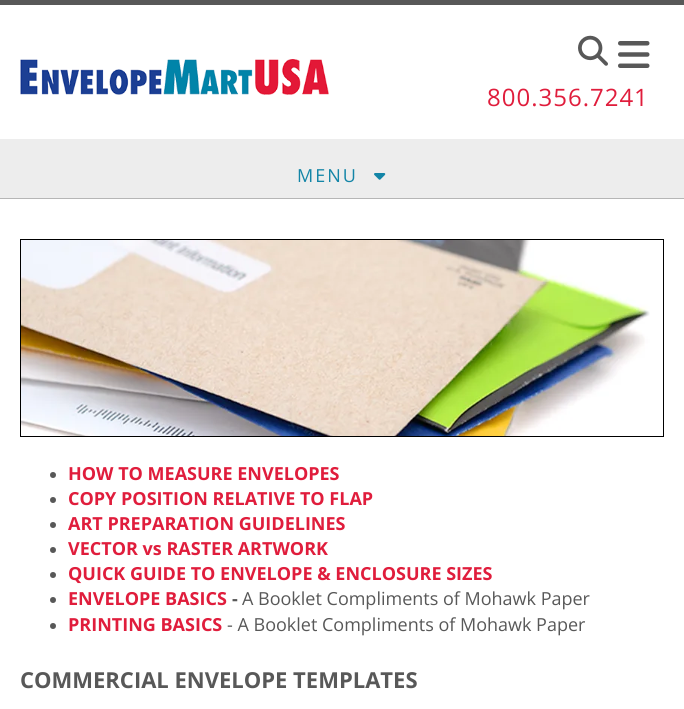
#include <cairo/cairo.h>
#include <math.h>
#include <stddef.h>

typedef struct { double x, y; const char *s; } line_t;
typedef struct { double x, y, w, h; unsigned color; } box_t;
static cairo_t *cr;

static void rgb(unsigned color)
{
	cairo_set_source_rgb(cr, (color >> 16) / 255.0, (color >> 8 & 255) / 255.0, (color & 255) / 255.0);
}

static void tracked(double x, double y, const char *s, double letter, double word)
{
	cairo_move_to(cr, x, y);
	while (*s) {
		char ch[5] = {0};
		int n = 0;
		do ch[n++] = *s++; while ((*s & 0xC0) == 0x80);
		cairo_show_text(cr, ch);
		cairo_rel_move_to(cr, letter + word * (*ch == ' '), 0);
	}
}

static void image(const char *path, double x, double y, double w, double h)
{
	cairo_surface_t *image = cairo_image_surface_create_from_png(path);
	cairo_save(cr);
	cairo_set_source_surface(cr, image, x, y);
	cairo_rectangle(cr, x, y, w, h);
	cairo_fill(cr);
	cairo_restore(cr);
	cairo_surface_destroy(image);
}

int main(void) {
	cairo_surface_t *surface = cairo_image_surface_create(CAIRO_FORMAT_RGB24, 684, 709);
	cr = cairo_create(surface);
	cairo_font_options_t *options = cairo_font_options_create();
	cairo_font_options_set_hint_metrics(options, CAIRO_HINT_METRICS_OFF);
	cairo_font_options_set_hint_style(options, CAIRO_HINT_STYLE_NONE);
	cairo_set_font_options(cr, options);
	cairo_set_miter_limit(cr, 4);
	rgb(0x585858);
	cairo_paint(cr);
	rgb(0xffffff);
	cairo_rectangle(cr, 0, 5, 684, 134);
	cairo_fill(cr);
	image("img/1.png", 20, 59, 309, 36);
	image("img/2.png", 578, 35, 30, 31);
	image("img/3.png", 618, 41, 32, 27);
	{
		static const box_t items[] = {
			{0, 199, 684, 510, 0xffffff},
			{0, 139, 684, 59, 0xededed},
			{0, 198, 684, 1, 0xb6b6b6},
		};
		for (size_t i = 0; i < sizeof items / sizeof *items; i++) {
			rgb(items[i].color);
			cairo_rectangle(cr, items[i].x, items[i].y, items[i].w, items[i].h);
			cairo_fill(cr);
		}
	}
	image("img/4.png", 374, 173, 12, 7);
	cairo_rectangle(cr, 20.5, 239.5, 643, 197);
	rgb(0x000000);
	cairo_set_line_width(cr, 1);
	cairo_stroke(cr);
	image("img/5.png", 21, 240, 629, 196);
	rgb(0x585858);
	cairo_arc(cr, 53, 475, 3, 0, 2 * M_PI);
	cairo_fill(cr);
	cairo_arc(cr, 53, 500, 3, 0, 2 * M_PI);
	cairo_fill(cr);
	cairo_arc(cr, 53, 525, 3, 0, 2 * M_PI);
	cairo_fill(cr);
	cairo_arc(cr, 53, 550, 3, 0, 2 * M_PI);
	cairo_fill(cr);
	cairo_arc(cr, 53, 575, 3, 0, 2 * M_PI);
	cairo_fill(cr);
	cairo_arc(cr, 53, 600, 3, 0, 2 * M_PI);
	cairo_fill(cr);
	cairo_arc(cr, 53, 626, 3, 0, 2 * M_PI);
	cairo_fill(cr);
	cairo_select_font_face(cr, "Open Sans", CAIRO_FONT_SLANT_NORMAL, CAIRO_FONT_WEIGHT_NORMAL);
	cairo_set_font_size(cr, 24);
	rgb(0xe01d3c);
	tracked(487, 106, "800.356.7241", 1, 0);
	cairo_set_font_size(cr, 18);
	rgb(0x1385a7);
	tracked(297, 182, "MENU", 2, 0);
	cairo_select_font_face(cr, "Open Sans", CAIRO_FONT_SLANT_NORMAL, CAIRO_FONT_WEIGHT_BOLD);
	rgb(0xe01d3c);
	{
		static const line_t items[] = {
			{68, 480, "HOW TO MEASURE ENVELOPES"},
			{68, 505, "COPY POSITION RELATIVE TO FLAP"},
			{68, 530, "ART PREPARATION GUIDELINES"},
			{68, 555, "VECTOR vs RASTER ARTWORK"},
			{68, 580, "QUICK GUIDE TO ENVELOPE & ENCLOSURE SIZES"},
			{68, 605, "ENVELOPE BASICS"},
		};
		for (size_t i = 0; i < sizeof items / sizeof *items; i++) {
			cairo_move_to(cr, items[i].x, items[i].y);
			cairo_show_text(cr, items[i].s);
		}
	}
	rgb(0x585858);
	cairo_move_to(cr, 232, 605);
	cairo_show_text(cr, "-");
	cairo_select_font_face(cr, "Open Sans", CAIRO_FONT_SLANT_NORMAL, CAIRO_FONT_WEIGHT_NORMAL);
	cairo_move_to(cr, 242, 605);
	cairo_show_text(cr, "A Booklet Compliments of Mohawk Paper");
	cairo_select_font_face(cr, "Open Sans", CAIRO_FONT_SLANT_NORMAL, CAIRO_FONT_WEIGHT_BOLD);
	rgb(0xe01d3c);
	cairo_move_to(cr, 68, 631);
	cairo_show_text(cr, "PRINTING BASICS");
	cairo_select_font_face(cr, "Open Sans", CAIRO_FONT_SLANT_NORMAL, CAIRO_FONT_WEIGHT_NORMAL);
	rgb(0x585858);
	cairo_move_to(cr, 227, 631);
	cairo_show_text(cr, "- A Booklet Compliments of Mohawk Paper");
	cairo_select_font_face(cr, "Open Sans", CAIRO_FONT_SLANT_NORMAL, CAIRO_FONT_WEIGHT_BOLD);
	cairo_set_font_size(cr, 22);
	cairo_move_to(cr, 20, 688);
	cairo_show_text(cr, "COMMERCIAL ENVELOPE TEMPLATES");
	cairo_surface_write_to_png(surface, "page.png");
	cairo_font_options_destroy(options);
	cairo_destroy(cr);
	cairo_surface_destroy(surface);
	return 0;
}
